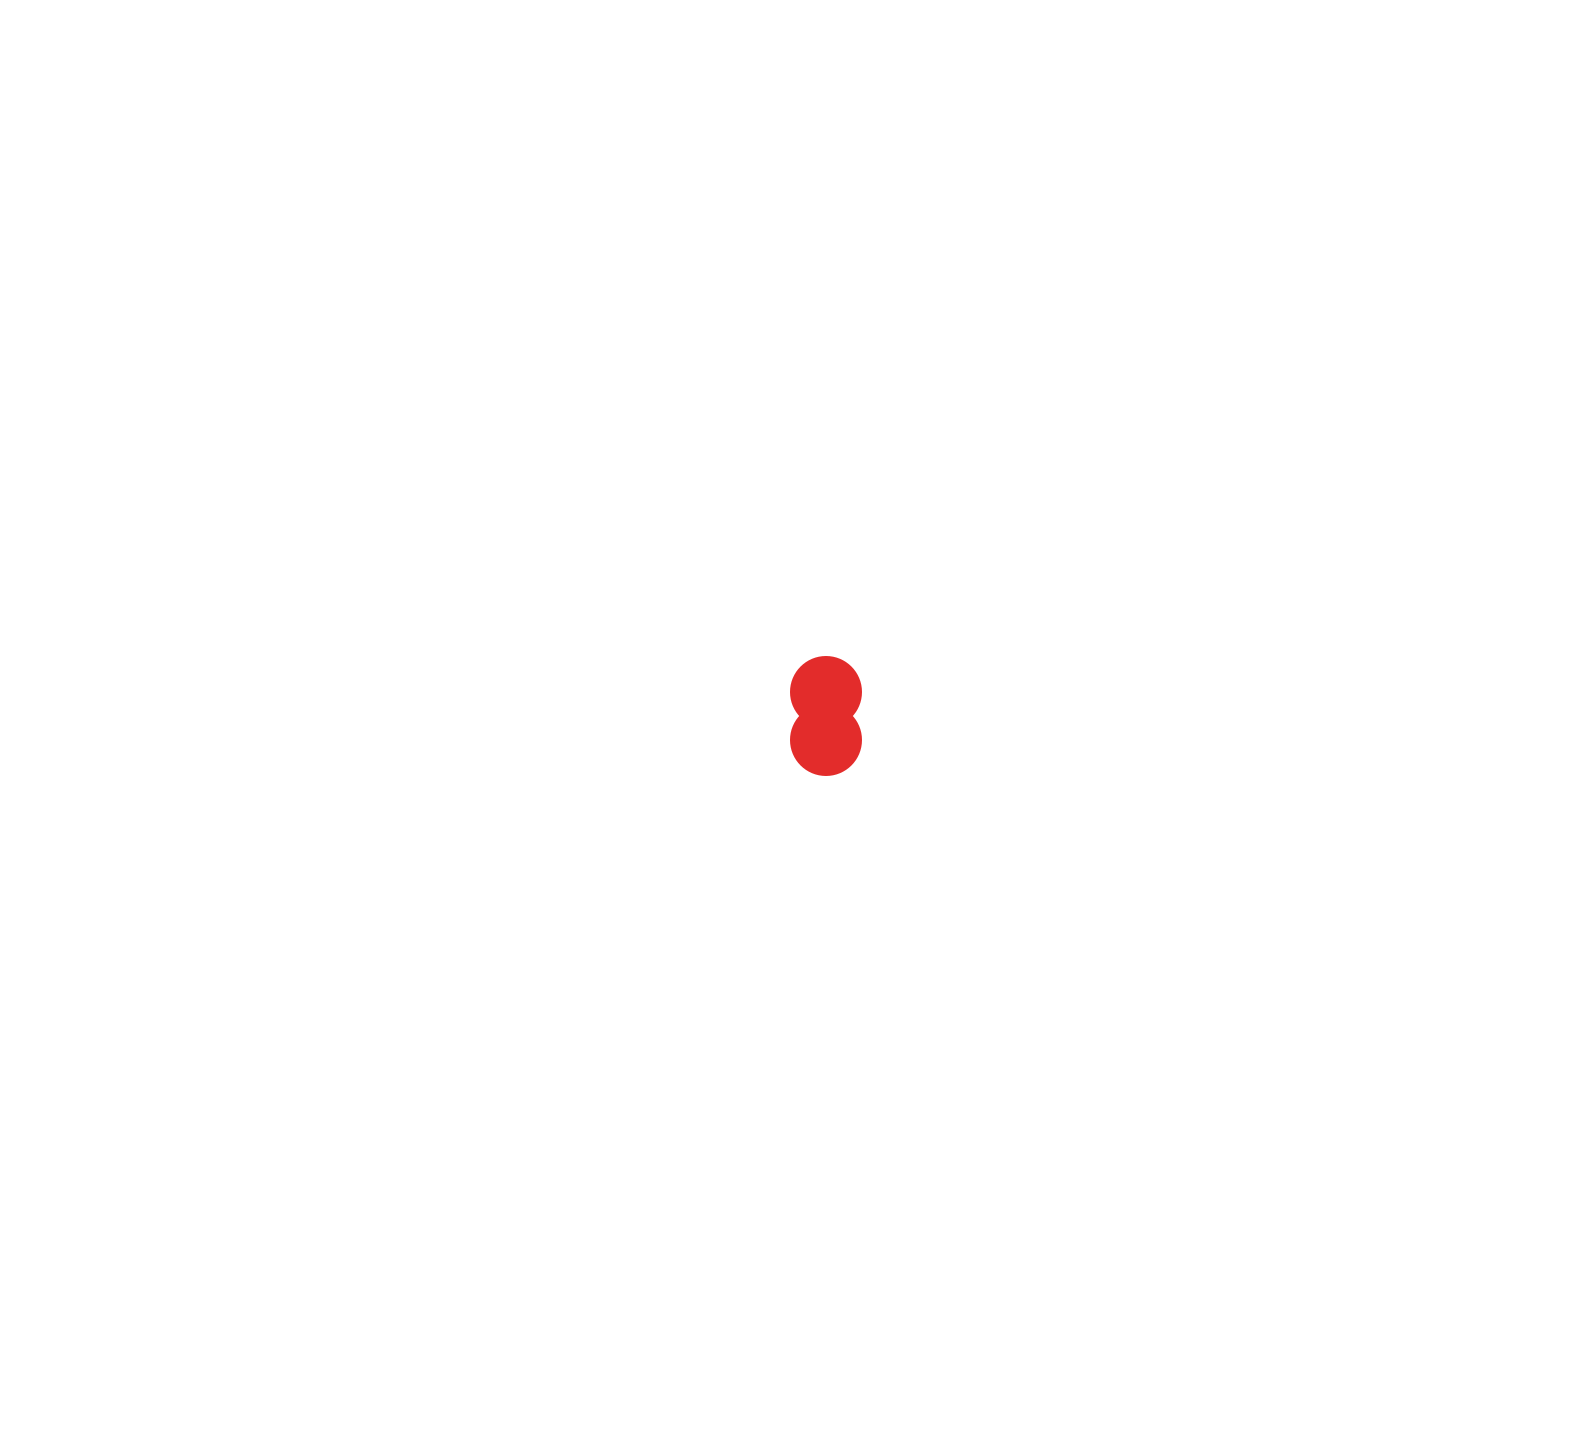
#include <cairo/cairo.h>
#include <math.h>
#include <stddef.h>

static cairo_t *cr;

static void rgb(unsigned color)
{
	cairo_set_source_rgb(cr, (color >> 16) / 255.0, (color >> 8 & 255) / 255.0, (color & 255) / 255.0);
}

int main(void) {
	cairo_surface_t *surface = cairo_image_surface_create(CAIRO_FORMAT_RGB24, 1580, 1431);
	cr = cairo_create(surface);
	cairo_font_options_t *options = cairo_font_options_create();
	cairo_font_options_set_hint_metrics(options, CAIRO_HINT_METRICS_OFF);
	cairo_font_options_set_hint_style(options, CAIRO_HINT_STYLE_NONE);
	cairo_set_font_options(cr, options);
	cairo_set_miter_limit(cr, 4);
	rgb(0xffffff);
	cairo_paint(cr);
	rgb(0xe32c2b);
	cairo_arc(cr, 826, 692, 36, 0, 2 * M_PI);
	cairo_fill(cr);
	cairo_arc(cr, 826, 740, 36, 0, 2 * M_PI);
	cairo_fill(cr);
	cairo_surface_write_to_png(surface, "page.png");
	cairo_font_options_destroy(options);
	cairo_destroy(cr);
	cairo_surface_destroy(surface);
	return 0;
}
